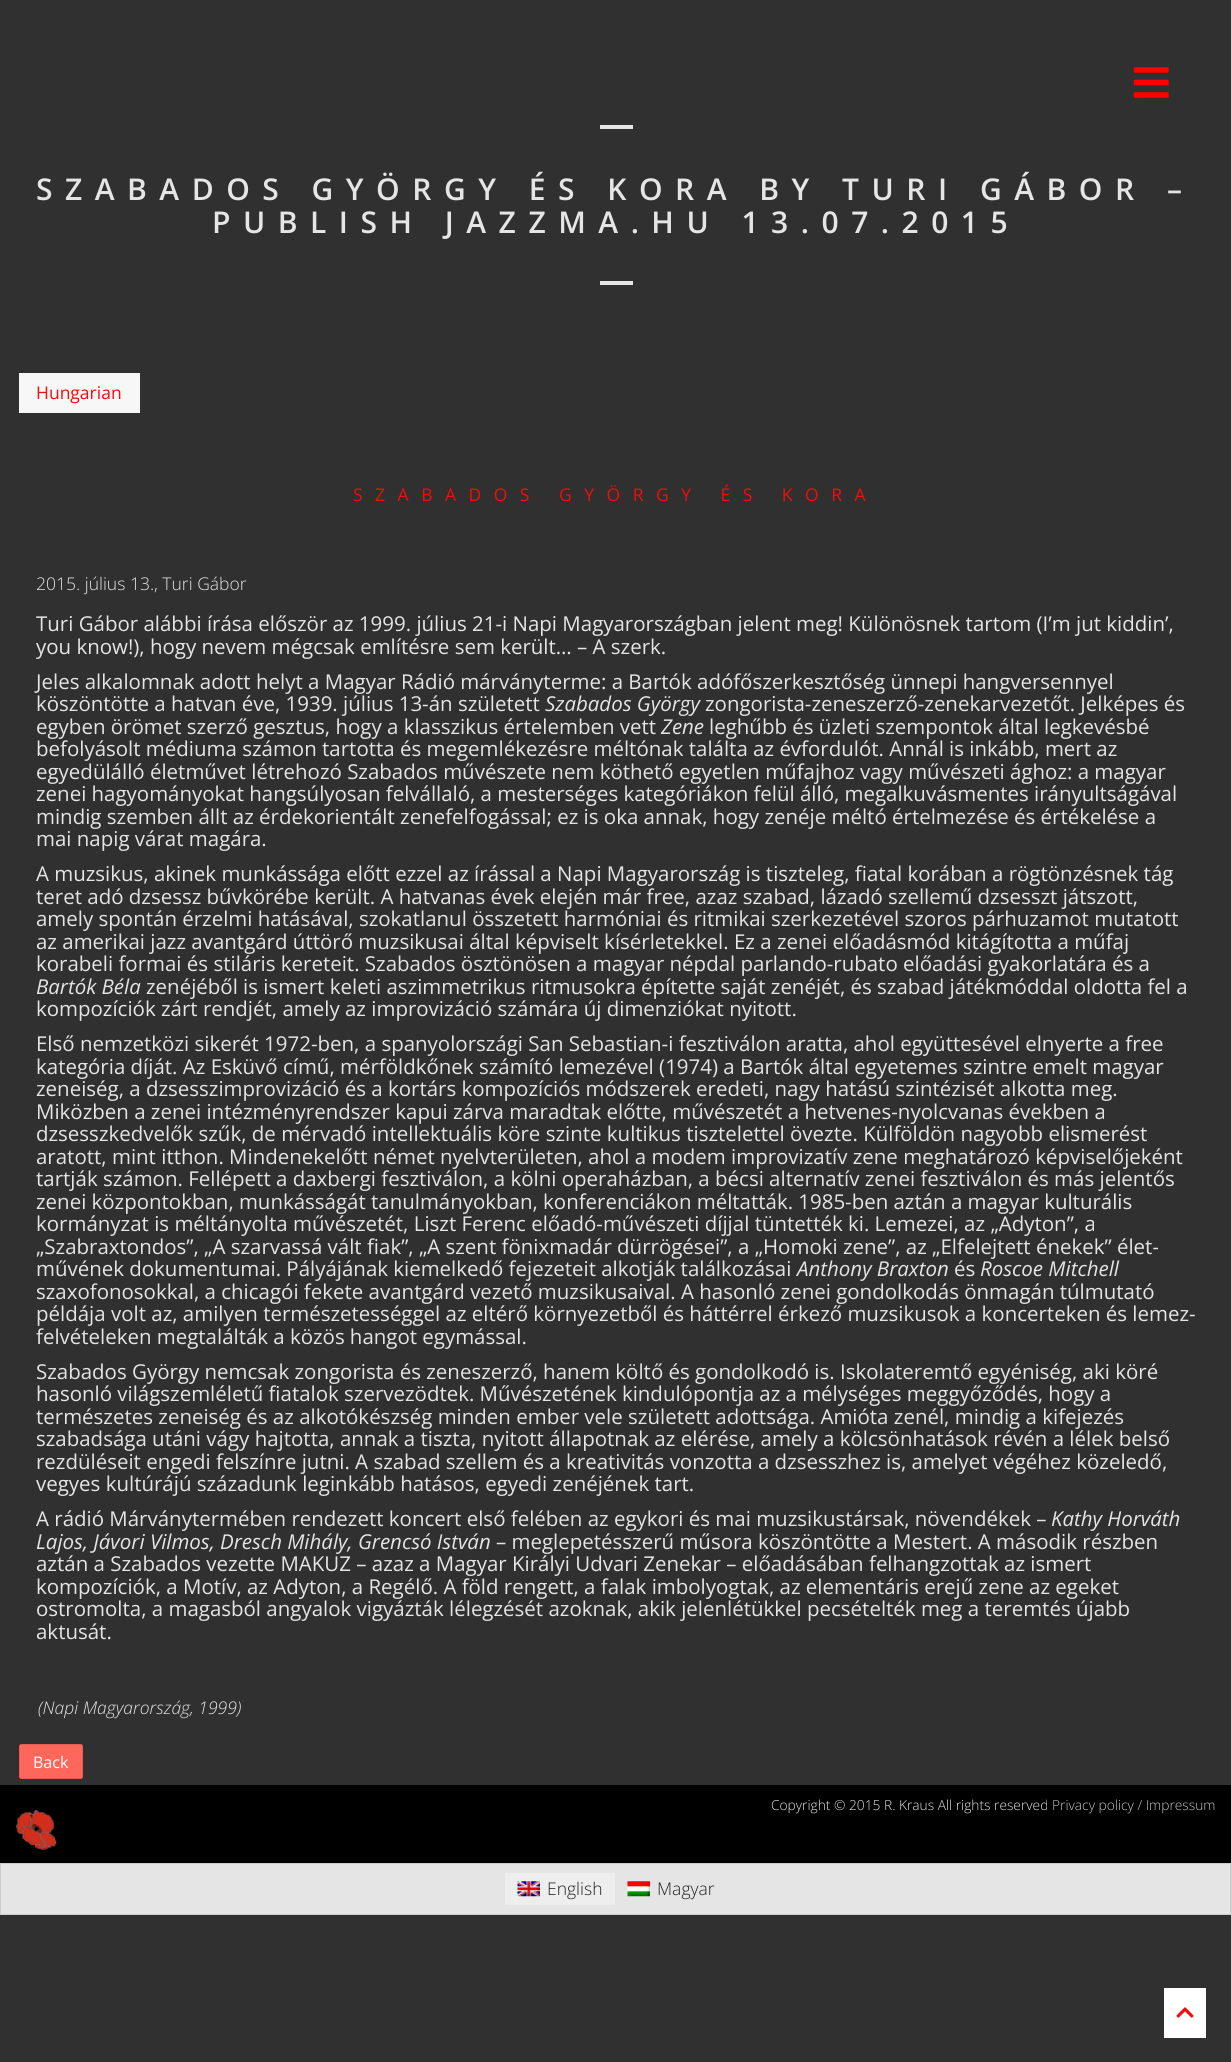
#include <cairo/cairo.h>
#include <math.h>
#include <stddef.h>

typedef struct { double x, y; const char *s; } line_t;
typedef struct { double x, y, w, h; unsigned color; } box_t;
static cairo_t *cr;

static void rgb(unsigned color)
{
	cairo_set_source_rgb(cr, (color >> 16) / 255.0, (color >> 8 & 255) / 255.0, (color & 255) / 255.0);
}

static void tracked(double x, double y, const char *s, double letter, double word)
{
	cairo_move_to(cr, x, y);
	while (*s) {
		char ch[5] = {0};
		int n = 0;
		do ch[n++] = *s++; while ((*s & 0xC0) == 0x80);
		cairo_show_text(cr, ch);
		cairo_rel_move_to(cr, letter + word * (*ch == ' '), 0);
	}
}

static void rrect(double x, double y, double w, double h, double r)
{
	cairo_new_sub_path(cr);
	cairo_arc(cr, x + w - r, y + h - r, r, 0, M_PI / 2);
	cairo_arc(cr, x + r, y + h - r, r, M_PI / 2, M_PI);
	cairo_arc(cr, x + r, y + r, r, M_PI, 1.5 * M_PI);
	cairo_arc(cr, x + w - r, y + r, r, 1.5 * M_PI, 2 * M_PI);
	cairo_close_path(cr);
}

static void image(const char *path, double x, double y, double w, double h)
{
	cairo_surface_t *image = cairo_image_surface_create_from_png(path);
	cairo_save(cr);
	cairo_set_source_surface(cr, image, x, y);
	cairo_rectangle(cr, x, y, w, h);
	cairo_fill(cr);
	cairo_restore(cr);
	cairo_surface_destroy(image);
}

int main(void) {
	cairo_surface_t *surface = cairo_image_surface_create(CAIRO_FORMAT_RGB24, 1231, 2062);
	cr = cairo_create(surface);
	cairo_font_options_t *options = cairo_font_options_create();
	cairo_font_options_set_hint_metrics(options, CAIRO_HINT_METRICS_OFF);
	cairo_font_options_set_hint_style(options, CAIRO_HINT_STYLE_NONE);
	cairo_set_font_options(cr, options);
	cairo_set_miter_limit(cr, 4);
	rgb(0x303030);
	cairo_paint(cr);
	image("img/1.png", 1133, 67, 36, 31);
	{
		static const box_t items[] = {
			{600, 125, 33, 4, 0xe5e5e5},
			{600, 281, 33, 4, 0xe5e5e5},
			{19, 373, 121, 40, 0xf7f7f7},
		};
		for (size_t i = 0; i < sizeof items / sizeof *items; i++) {
			rgb(items[i].color);
			cairo_rectangle(cr, items[i].x, items[i].y, items[i].w, items[i].h);
			cairo_fill(cr);
		}
	}
	rgb(0xff675b);
	rrect(19, 1744, 64, 35, 2.5);
	cairo_fill(cr);
	rrect(19.5, 1744.5, 63, 34, 2);
	cairo_set_source_rgba(cr, 0, 0, 0, 0.1);
	cairo_set_line_width(cr, 1);
	cairo_stroke(cr);
	rgb(0x000000);
	cairo_rectangle(cr, 0, 1785, 1231, 78);
	cairo_fill(cr);
	image("img/2.png", 16, 1810, 41, 40);
	rgb(0xe5e5e5);
	cairo_rectangle(cr, 0.5, 1863.5, 1230, 51);
	cairo_fill_preserve(cr);
	rgb(0xcdcdcd);
	cairo_stroke(cr);
	rgb(0xeeeeee);
	cairo_rectangle(cr, 505, 1873, 110, 32);
	cairo_fill(cr);
	image("img/3.png", 517, 1881, 23, 16);
	image("img/4.png", 627, 1881, 23, 16);
	rgb(0xffffff);
	cairo_rectangle(cr, 1164, 1988, 42, 50);
	cairo_fill(cr);
	image("img/5.png", 1176, 2007, 18, 11);
	cairo_select_font_face(cr, "Open Sans SemiBold", CAIRO_FONT_SLANT_NORMAL, CAIRO_FONT_WEIGHT_NORMAL);
	cairo_set_font_size(cr, 30);
	rgb(0xe5e5e5);
	tracked(36, 200, "SZABADOS GYÖRGY ÉS KORA BY TURI GÁBOR –", 12.5, 0);
	tracked(212, 233, "PUBLISH JAZZMA.HU 13.07.2015", 12.5, 0);
	cairo_select_font_face(cr, "Open Sans", CAIRO_FONT_SLANT_NORMAL, CAIRO_FONT_WEIGHT_NORMAL);
	cairo_set_font_size(cr, 17.5);
	rgb(0xf50b0b);
	cairo_move_to(cr, 36, 399);
	cairo_show_text(cr, "Hungarian");
	tracked(353, 501, "SZABADOS GYÖRGY ÉS KORA", 12.5, 0);
	cairo_select_font_face(cr, "Open Sans Light", CAIRO_FONT_SLANT_NORMAL, CAIRO_FONT_WEIGHT_NORMAL);
	rgb(0xe5e5e5);
	cairo_move_to(cr, 36, 590);
	cairo_show_text(cr, "2015. július 13., Turi Gábor");
	cairo_select_font_face(cr, "Open Sans", CAIRO_FONT_SLANT_NORMAL, CAIRO_FONT_WEIGHT_NORMAL);
	cairo_set_font_size(cr, 20.47);
	{
		static const line_t items[] = {
			{36, 631, "Turi Gábor alábbi írása először az 1999. július 21-i Napi Magyarországban jelent meg! Különösnek tartom (I’m jut kiddin’,"},
			{36, 654, "you know!), hogy nevem mégcsak említésre sem került… – A szerk."},
			{36, 689, "Jeles alkalomnak adott helyt a Magyar Rádió márványterme: a Bartók adófőszerkesztőség ünnepi hangversennyel"},
			{36, 711, "köszöntötte a hatvan éve, 1939. július 13-án született"},
		};
		for (size_t i = 0; i < sizeof items / sizeof *items; i++) {
			cairo_move_to(cr, items[i].x, items[i].y);
			cairo_show_text(cr, items[i].s);
		}
	}
	cairo_select_font_face(cr, "Open Sans", CAIRO_FONT_SLANT_ITALIC, CAIRO_FONT_WEIGHT_NORMAL);
	cairo_move_to(cr, 545, 711);
	cairo_show_text(cr, "Szabados György");
	cairo_select_font_face(cr, "Open Sans", CAIRO_FONT_SLANT_NORMAL, CAIRO_FONT_WEIGHT_NORMAL);
	cairo_move_to(cr, 705, 711);
	cairo_show_text(cr, "zongorista-zeneszerző-zenekarvezetőt. Jelképes és");
	cairo_move_to(cr, 36, 734);
	cairo_show_text(cr, "egyben örömet szerző gesztus, hogy a klasszikus értelemben vett");
	cairo_select_font_face(cr, "Open Sans", CAIRO_FONT_SLANT_ITALIC, CAIRO_FONT_WEIGHT_NORMAL);
	cairo_move_to(cr, 661, 734);
	cairo_show_text(cr, "Zene");
	cairo_select_font_face(cr, "Open Sans", CAIRO_FONT_SLANT_NORMAL, CAIRO_FONT_WEIGHT_NORMAL);
	{
		static const line_t items[] = {
			{709, 734, "leghűbb és üzleti szempontok által legkevésbé"},
			{36, 756, "befolyásolt médiuma számon tartotta és megemlékezésre méltónak találta az évfordulót. Annál is inkább, mert az"},
			{36, 779, "egyedülálló életművet létrehozó Szabados művészete nem köthető egyetlen műfajhoz vagy művészeti ághoz: a magyar"},
		};
		for (size_t i = 0; i < sizeof items / sizeof *items; i++) {
			cairo_move_to(cr, items[i].x, items[i].y);
			cairo_show_text(cr, items[i].s);
		}
	}
	tracked(36, 801, "zenei hagyományokat hangsúlyosan felvállaló, a mesterséges kategóriákon felül álló, megalkuvásmentes irányultságával", 0, -0.1);
	{
		static const line_t items[] = {
			{36, 824, "mindig szemben állt az érdekorientált zenefelfogással; ez is oka annak, hogy zenéje méltó értelmezése és értékelése a"},
			{36, 846, "mai napig várat magára."},
			{36, 881, "A muzsikus, akinek munkássága előtt ezzel az írással a Napi Magyarország is tiszteleg, fiatal korában a rögtönzésnek tág"},
			{36, 904, "teret adó dzsessz bűvkörébe került. A hatvanas évek elején már free, azaz szabad, lázadó szellemű dzsesszt játszott,"},
			{36, 926, "amely spontán érzelmi hatásával, szokatlanul összetett harmóniai és ritmikai szerkezetével szoros párhuzamot mutatott"},
			{36, 949, "az amerikai jazz avantgárd úttörő muzsikusai által képviselt kísérletekkel. Ez a zenei előadásmód kitágította a műfaj"},
			{36, 971, "korabeli formai és stiláris kereteit. Szabados ösztönösen a magyar népdal parlando-rubato előadási gyakorlatára és a"},
		};
		for (size_t i = 0; i < sizeof items / sizeof *items; i++) {
			cairo_move_to(cr, items[i].x, items[i].y);
			cairo_show_text(cr, items[i].s);
		}
	}
	cairo_select_font_face(cr, "Open Sans", CAIRO_FONT_SLANT_ITALIC, CAIRO_FONT_WEIGHT_NORMAL);
	cairo_move_to(cr, 36, 994);
	cairo_show_text(cr, "Bartók Béla");
	cairo_select_font_face(cr, "Open Sans", CAIRO_FONT_SLANT_NORMAL, CAIRO_FONT_WEIGHT_NORMAL);
	{
		static const line_t items[] = {
			{146, 994, "zenéjéből is ismert keleti aszimmetrikus ritmusokra építette saját zenéjét, és szabad játékmóddal oldotta fel a"},
			{36, 1016, "kompozíciók zárt rendjét, amely az improvizáció számára új dimenziókat nyitott."},
			{36, 1051, "Első nemzetközi sikerét 1972-ben, a spanyolországi San Sebastian-i fesztiválon aratta, ahol együttesével elnyerte a free"},
			{36, 1074, "kategória díját. Az Esküvő című, mérföldkőnek számító lemezével (1974) a Bartók által egyetemes szintre emelt magyar"},
			{36, 1096, "zeneiség, a dzsesszimprovizáció és a kortárs kompozíciós módszerek eredeti, nagy hatású szintézisét alkotta meg."},
			{36, 1119, "Miközben a zenei intézményrendszer kapui zárva maradtak előtte, művészetét a hetvenes-nyolcvanas években a"},
			{36, 1141, "dzsesszkedvelők szűk, de mérvadó intellektuális köre szinte kultikus tisztelettel övezte. Külföldön nagyobb elismerést"},
			{36, 1164, "aratott, mint itthon. Mindenekelőtt német nyelvterületen, ahol a modem improvizatív zene meghatározó képviselőjeként"},
			{36, 1186, "tartják számon. Fellépett a daxbergi fesztiválon, a kölni operaházban, a bécsi alternatív zenei fesztiválon és más jelentős"},
		};
		for (size_t i = 0; i < sizeof items / sizeof *items; i++) {
			cairo_move_to(cr, items[i].x, items[i].y);
			cairo_show_text(cr, items[i].s);
		}
	}
	tracked(36, 1209, "zenei központokban, munkásságát tanulmányokban, konferenciákon méltatták. 1985-ben aztán a magyar kulturális", 0, -0.1);
	cairo_move_to(cr, 36, 1231);
	cairo_show_text(cr, "kormányzat is méltányolta művészetét, Liszt Ferenc előadó-művészeti díjjal tüntették ki. Lemezei, az „Adyton”, a");
	cairo_move_to(cr, 36, 1254);
	cairo_show_text(cr, "„Szabraxtondos”, „A szarvassá vált fiak”, „A szent fönixmadár dürrögései”, a „Homoki zene”, az „Elfelejtett énekek” élet-");
	tracked(36, 1276, "művének dokumentumai. Pályájának kiemelkedő fejezeteit alkotják találkozásai", 0, -0.1);
	cairo_select_font_face(cr, "Open Sans", CAIRO_FONT_SLANT_ITALIC, CAIRO_FONT_WEIGHT_NORMAL);
	cairo_move_to(cr, 797, 1276);
	cairo_show_text(cr, "Anthony Braxton");
	cairo_select_font_face(cr, "Open Sans", CAIRO_FONT_SLANT_NORMAL, CAIRO_FONT_WEIGHT_NORMAL);
	cairo_move_to(cr, 954, 1276);
	cairo_show_text(cr, "és");
	cairo_select_font_face(cr, "Open Sans", CAIRO_FONT_SLANT_ITALIC, CAIRO_FONT_WEIGHT_NORMAL);
	cairo_move_to(cr, 980, 1276);
	cairo_show_text(cr, "Roscoe Mitchell");
	cairo_select_font_face(cr, "Open Sans", CAIRO_FONT_SLANT_NORMAL, CAIRO_FONT_WEIGHT_NORMAL);
	cairo_move_to(cr, 36, 1299);
	cairo_show_text(cr, "szaxofonosokkal, a chicagói fekete avantgárd vezető muzsikusaival. A hasonló zenei gondolkodás önmagán túlmutató");
	cairo_move_to(cr, 36, 1321);
	cairo_show_text(cr, "példája volt az, amilyen természetességgel az eltérő környezetből és háttérrel érkező muzsikusok a koncerteken és lemez-");
	tracked(36, 1344, "felvételeken megtalálták a közös hangot egymással.", 0, -0.1);
	cairo_move_to(cr, 36, 1379);
	cairo_show_text(cr, "Szabados György nemcsak zongorista és zeneszerző, hanem költő és gondolkodó is. Iskolateremtő egyéniség, aki köré");
	tracked(36, 1401, "hasonló világszemléletű fiatalok szervezödtek. Művészetének kindulópontja az a mélységes meggyőződés, hogy a", 0, -0.1);
	{
		static const line_t items[] = {
			{36, 1424, "természetes zeneiség és az alkotókészség minden ember vele született adottsága. Amióta zenél, mindig a kifejezés"},
			{36, 1446, "szabadsága utáni vágy hajtotta, annak a tiszta, nyitott állapotnak az elérése, amely a kölcsönhatások révén a lélek belső"},
			{36, 1469, "rezdüléseit engedi felszínre jutni. A szabad szellem és a kreativitás vonzotta a dzsesszhez is, amelyet végéhez közeledő,"},
			{36, 1491, "vegyes kultúrájú századunk leginkább hatásos, egyedi zenéjének tart."},
			{36, 1526, "A rádió Márványtermében rendezett koncert első felében az egykori és mai muzsikustársak, növendékek –"},
		};
		for (size_t i = 0; i < sizeof items / sizeof *items; i++) {
			cairo_move_to(cr, items[i].x, items[i].y);
			cairo_show_text(cr, items[i].s);
		}
	}
	cairo_select_font_face(cr, "Open Sans", CAIRO_FONT_SLANT_ITALIC, CAIRO_FONT_WEIGHT_NORMAL);
	cairo_move_to(cr, 1051, 1526);
	cairo_show_text(cr, "Kathy Horváth");
	cairo_move_to(cr, 36, 1549);
	cairo_show_text(cr, "Lajos, Jávori Vilmos, Dresch Mihály, Grencsó István");
	cairo_select_font_face(cr, "Open Sans", CAIRO_FONT_SLANT_NORMAL, CAIRO_FONT_WEIGHT_NORMAL);
	{
		static const line_t items[] = {
			{496, 1549, "– meglepetésszerű műsora köszöntötte a Mestert. A második részben"},
			{36, 1571, "aztán a Szabados vezette MAKUZ – azaz a Magyar Királyi Udvari Zenekar – előadásában felhangzottak az ismert"},
			{36, 1594, "kompozíciók, a Motív, az Adyton, a Regélő. A föld rengett, a falak imbolyogtak, az elementáris erejű zene az egeket"},
			{36, 1616, "ostromolta, a magasból angyalok vigyázták lélegzését azoknak, akik jelenlétükkel pecsételték meg a teremtés újabb"},
			{36, 1639, "aktusát."},
		};
		for (size_t i = 0; i < sizeof items / sizeof *items; i++) {
			cairo_move_to(cr, items[i].x, items[i].y);
			cairo_show_text(cr, items[i].s);
		}
	}
	cairo_select_font_face(cr, "Open Sans Light", CAIRO_FONT_SLANT_ITALIC, CAIRO_FONT_WEIGHT_NORMAL);
	cairo_set_font_size(cr, 17.5);
	cairo_move_to(cr, 38, 1714);
	cairo_show_text(cr, "(Napi Magyarország, 1999)");
	cairo_select_font_face(cr, "Open Sans", CAIRO_FONT_SLANT_NORMAL, CAIRO_FONT_WEIGHT_NORMAL);
	cairo_set_font_size(cr, 16);
	rgb(0xffffff);
	cairo_move_to(cr, 33, 1768);
	cairo_show_text(cr, "Back");
	cairo_select_font_face(cr, "Open Sans Light", CAIRO_FONT_SLANT_NORMAL, CAIRO_FONT_WEIGHT_NORMAL);
	cairo_set_font_size(cr, 13.75);
	rgb(0xe5e5e5);
	cairo_move_to(cr, 771, 1810);
	cairo_show_text(cr, "Copyright © 2015 R. Kraus All rights reserved");
	rgb(0xc4c4c4);
	cairo_move_to(cr, 1052, 1810);
	cairo_show_text(cr, "Privacy policy / Impressum");
	cairo_set_font_size(cr, 17.5);
	rgb(0x222222);
	cairo_move_to(cr, 547, 1895);
	cairo_show_text(cr, "English");
	cairo_move_to(cr, 657, 1895);
	cairo_show_text(cr, "Magyar");
	cairo_surface_write_to_png(surface, "page.png");
	cairo_font_options_destroy(options);
	cairo_destroy(cr);
	cairo_surface_destroy(surface);
	return 0;
}
